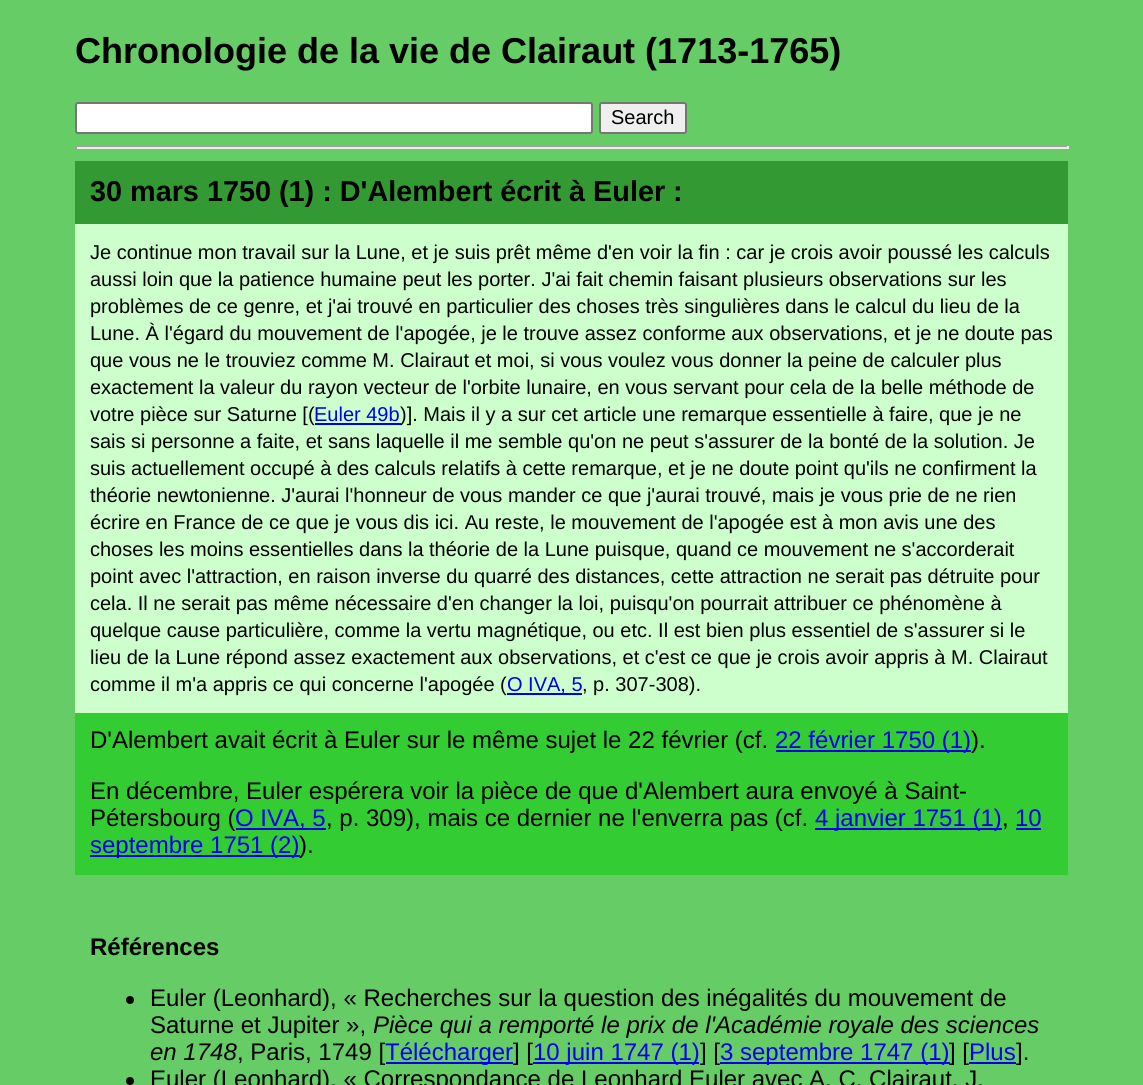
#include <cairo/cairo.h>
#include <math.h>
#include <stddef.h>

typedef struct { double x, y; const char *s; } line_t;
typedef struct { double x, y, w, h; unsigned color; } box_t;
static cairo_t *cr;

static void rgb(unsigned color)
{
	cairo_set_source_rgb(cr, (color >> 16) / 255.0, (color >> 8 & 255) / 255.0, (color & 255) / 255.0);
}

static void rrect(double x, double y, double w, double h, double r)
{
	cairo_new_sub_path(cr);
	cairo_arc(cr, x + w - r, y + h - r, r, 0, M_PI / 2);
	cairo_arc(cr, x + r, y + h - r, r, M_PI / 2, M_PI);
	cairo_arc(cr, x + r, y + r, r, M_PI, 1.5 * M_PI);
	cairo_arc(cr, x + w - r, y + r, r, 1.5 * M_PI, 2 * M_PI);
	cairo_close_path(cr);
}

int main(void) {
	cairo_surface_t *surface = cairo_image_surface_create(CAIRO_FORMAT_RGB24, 1143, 1085);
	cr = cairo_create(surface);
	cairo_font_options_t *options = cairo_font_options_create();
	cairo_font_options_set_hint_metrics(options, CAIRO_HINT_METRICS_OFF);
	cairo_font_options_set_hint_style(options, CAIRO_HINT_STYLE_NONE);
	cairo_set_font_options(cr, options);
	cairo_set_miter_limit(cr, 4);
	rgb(0x66cc66);
	cairo_paint(cr);
	rgb(0xffffff);
	rrect(76, 103, 516, 30, 2);
	cairo_fill_preserve(cr);
	rgb(0x767676);
	cairo_stroke(cr);
	rgb(0xefefef);
	rrect(600, 103, 86, 30, 2);
	cairo_fill_preserve(cr);
	rgb(0x767676);
	cairo_stroke(cr);
	{
		static const box_t items[] = {
			{75, 146, 993, 1, 0x9f9f9f},
			{1067, 146, 2, 3, 0xeeeeee},
			{75, 147, 993, 2, 0xeeeeee},
			{75, 146, 2, 3, 0x9f9f9f},
			{75, 161, 993, 63, 0x339933},
			{75, 224, 993, 489, 0xccffcc},
			{315, 423, 86, 2, 0x0000ee},
			{507, 693, 75, 2, 0x0000ee},
			{75, 713, 993, 162, 0x33cc33},
			{776, 750, 195, 2, 0x0000ee},
			{236, 828, 90, 2, 0x0000ee},
			{815, 828, 187, 2, 0x0000ee},
			{1016, 828, 25, 2, 0x0000ee},
			{90, 855, 210, 2, 0x0000ee},
		};
		for (size_t i = 0; i < sizeof items / sizeof *items; i++) {
			rgb(items[i].color);
			cairo_rectangle(cr, items[i].x, items[i].y, items[i].w, items[i].h);
			cairo_fill(cr);
		}
	}
	rgb(0x000000);
	cairo_arc(cr, 130, 1000, 4, 0, 2 * M_PI);
	cairo_fill(cr);
	{
		static const box_t items[] = {
			{386, 1062, 127, 2, 0x0000ee},
			{533, 1062, 166, 2, 0x0000ee},
			{720, 1062, 230, 2, 0x0000ee},
		};
		for (size_t i = 0; i < sizeof items / sizeof *items; i++) {
			rgb(items[i].color);
			cairo_rectangle(cr, items[i].x, items[i].y, items[i].w, items[i].h);
			cairo_fill(cr);
		}
	}
	rgb(0x000000);
	cairo_arc(cr, 130, 1081, 4, 0, 2 * M_PI);
	cairo_fill(cr);
	cairo_select_font_face(cr, "Liberation Sans", CAIRO_FONT_SLANT_NORMAL, CAIRO_FONT_WEIGHT_BOLD);
	cairo_set_font_size(cr, 36);
	cairo_move_to(cr, 75, 63);
	cairo_show_text(cr, "Chronologie de la vie de Clairaut (1713-1765)");
	cairo_select_font_face(cr, "Liberation Sans", CAIRO_FONT_SLANT_NORMAL, CAIRO_FONT_WEIGHT_NORMAL);
	cairo_set_font_size(cr, 20);
	cairo_move_to(cr, 611, 124);
	cairo_show_text(cr, "Search");
	cairo_select_font_face(cr, "Liberation Sans", CAIRO_FONT_SLANT_NORMAL, CAIRO_FONT_WEIGHT_BOLD);
	cairo_set_font_size(cr, 28.8);
	cairo_move_to(cr, 90, 201);
	cairo_show_text(cr, "30 mars 1750 (1) : D'Alembert écrit à Euler :");
	cairo_select_font_face(cr, "Liberation Sans", CAIRO_FONT_SLANT_NORMAL, CAIRO_FONT_WEIGHT_NORMAL);
	cairo_set_font_size(cr, 20);
	{
		static const line_t items[] = {
			{90, 259, "Je continue mon travail sur la Lune, et je suis prêt même d'en voir la fin : car je crois avoir poussé les calculs"},
			{90, 286, "aussi loin que la patience humaine peut les porter. J'ai fait chemin faisant plusieurs observations sur les"},
			{90, 313, "problèmes de ce genre, et j'ai trouvé en particulier des choses très singulières dans le calcul du lieu de la"},
			{90, 340, "Lune. À l'égard du mouvement de l'apogée, je le trouve assez conforme aux observations, et je ne doute pas"},
			{90, 367, "que vous ne le trouviez comme M. Clairaut et moi, si vous voulez vous donner la peine de calculer plus"},
			{90, 394, "exactement la valeur du rayon vecteur de l'orbite lunaire, en vous servant pour cela de la belle méthode de"},
			{90, 421, "votre pièce sur Saturne [("},
		};
		for (size_t i = 0; i < sizeof items / sizeof *items; i++) {
			cairo_move_to(cr, items[i].x, items[i].y);
			cairo_show_text(cr, items[i].s);
		}
	}
	rgb(0x0000ee);
	cairo_move_to(cr, 314, 421);
	cairo_show_text(cr, "Euler 49b");
	rgb(0x000000);
	{
		static const line_t items[] = {
			{400, 421, ")]. Mais il y a sur cet article une remarque essentielle à faire, que je ne"},
			{90, 448, "sais si personne a faite, et sans laquelle il me semble qu'on ne peut s'assurer de la bonté de la solution. Je"},
			{90, 475, "suis actuellement occupé à des calculs relatifs à cette remarque, et je ne doute point qu'ils ne confirment la"},
			{90, 502, "théorie newtonienne. J'aurai l'honneur de vous mander ce que j'aurai trouvé, mais je vous prie de ne rien"},
			{90, 529, "écrire en France de ce que je vous dis ici. Au reste, le mouvement de l'apogée est à mon avis une des"},
			{90, 556, "choses les moins essentielles dans la théorie de la Lune puisque, quand ce mouvement ne s'accorderait"},
			{90, 583, "point avec l'attraction, en raison inverse du quarré des distances, cette attraction ne serait pas détruite pour"},
			{90, 610, "cela. Il ne serait pas même nécessaire d'en changer la loi, puisqu'on pourrait attribuer ce phénomène à"},
			{90, 637, "quelque cause particulière, comme la vertu magnétique, ou etc. Il est bien plus essentiel de s'assurer si le"},
			{90, 664, "lieu de la Lune répond assez exactement aux observations, et c'est ce que je crois avoir appris à M. Clairaut"},
			{90, 691, "comme il m'a appris ce qui concerne l'apogée ("},
		};
		for (size_t i = 0; i < sizeof items / sizeof *items; i++) {
			cairo_move_to(cr, items[i].x, items[i].y);
			cairo_show_text(cr, items[i].s);
		}
	}
	rgb(0x0000ee);
	cairo_move_to(cr, 507, 691);
	cairo_show_text(cr, "O IVA, 5");
	rgb(0x000000);
	cairo_move_to(cr, 582, 691);
	cairo_show_text(cr, ", p. 307-308).");
	cairo_set_font_size(cr, 24);
	cairo_move_to(cr, 90, 748);
	cairo_show_text(cr, "D'Alembert avait écrit à Euler sur le même sujet le 22 février (cf.");
	rgb(0x0000ee);
	cairo_move_to(cr, 775, 748);
	cairo_show_text(cr, "22 février 1750 (1)");
	rgb(0x000000);
	{
		static const line_t items[] = {
			{971, 748, ")."},
			{90, 799, "En décembre, Euler espérera voir la pièce de que d'Alembert aura envoyé à Saint-"},
			{90, 826, "Pétersbourg ("},
		};
		for (size_t i = 0; i < sizeof items / sizeof *items; i++) {
			cairo_move_to(cr, items[i].x, items[i].y);
			cairo_show_text(cr, items[i].s);
		}
	}
	rgb(0x0000ee);
	cairo_move_to(cr, 235, 826);
	cairo_show_text(cr, "O IVA, 5");
	rgb(0x000000);
	cairo_move_to(cr, 326, 826);
	cairo_show_text(cr, ", p. 309), mais ce dernier ne l'enverra pas (cf.");
	rgb(0x0000ee);
	cairo_move_to(cr, 815, 826);
	cairo_show_text(cr, "4 janvier 1751 (1)");
	rgb(0x000000);
	cairo_move_to(cr, 1002, 826);
	cairo_show_text(cr, ",");
	rgb(0x0000ee);
	cairo_move_to(cr, 1015, 826);
	cairo_show_text(cr, "10");
	cairo_move_to(cr, 90, 853);
	cairo_show_text(cr, "septembre 1751 (2)");
	rgb(0x000000);
	cairo_move_to(cr, 299, 853);
	cairo_show_text(cr, ").");
	cairo_select_font_face(cr, "Liberation Sans", CAIRO_FONT_SLANT_NORMAL, CAIRO_FONT_WEIGHT_BOLD);
	cairo_move_to(cr, 90, 955);
	cairo_show_text(cr, "Références");
	cairo_select_font_face(cr, "Liberation Sans", CAIRO_FONT_SLANT_NORMAL, CAIRO_FONT_WEIGHT_NORMAL);
	cairo_move_to(cr, 150, 1006);
	cairo_show_text(cr, "Euler (Leonhard), « Recherches sur la question des inégalités du mouvement de");
	cairo_move_to(cr, 150, 1033);
	cairo_show_text(cr, "Saturne et Jupiter »,");
	cairo_select_font_face(cr, "Liberation Sans", CAIRO_FONT_SLANT_ITALIC, CAIRO_FONT_WEIGHT_NORMAL);
	cairo_move_to(cr, 373, 1033);
	cairo_show_text(cr, "Pièce qui a remporté le prix de l'Académie royale des sciences");
	cairo_move_to(cr, 150, 1060);
	cairo_show_text(cr, "en 1748");
	cairo_select_font_face(cr, "Liberation Sans", CAIRO_FONT_SLANT_NORMAL, CAIRO_FONT_WEIGHT_NORMAL);
	cairo_move_to(cr, 237, 1060);
	cairo_show_text(cr, ", Paris, 1749 [");
	rgb(0x0000ee);
	cairo_move_to(cr, 385, 1060);
	cairo_show_text(cr, "Télécharger");
	rgb(0x000000);
	cairo_move_to(cr, 513, 1060);
	cairo_show_text(cr, "] [");
	rgb(0x0000ee);
	cairo_move_to(cr, 533, 1060);
	cairo_show_text(cr, "10 juin 1747 (1)");
	rgb(0x000000);
	cairo_move_to(cr, 700, 1060);
	cairo_show_text(cr, "] [");
	rgb(0x0000ee);
	cairo_move_to(cr, 720, 1060);
	cairo_show_text(cr, "3 septembre 1747 (1)");
	rgb(0x000000);
	cairo_move_to(cr, 949, 1060);
	cairo_show_text(cr, "] [");
	rgb(0x0000ee);
	cairo_move_to(cr, 969, 1060);
	cairo_show_text(cr, "Plus");
	cairo_rectangle(cr, 969, 1062, 47, 2);
	cairo_fill(cr);
	rgb(0x000000);
	cairo_move_to(cr, 1016, 1060);
	cairo_show_text(cr, "].");
	cairo_move_to(cr, 150, 1087);
	cairo_show_text(cr, "Euler (Leonhard), « Correspondance de Leonhard Euler avec A. C. Clairaut, J.");
	cairo_surface_write_to_png(surface, "page.png");
	cairo_font_options_destroy(options);
	cairo_destroy(cr);
	cairo_surface_destroy(surface);
	return 0;
}
